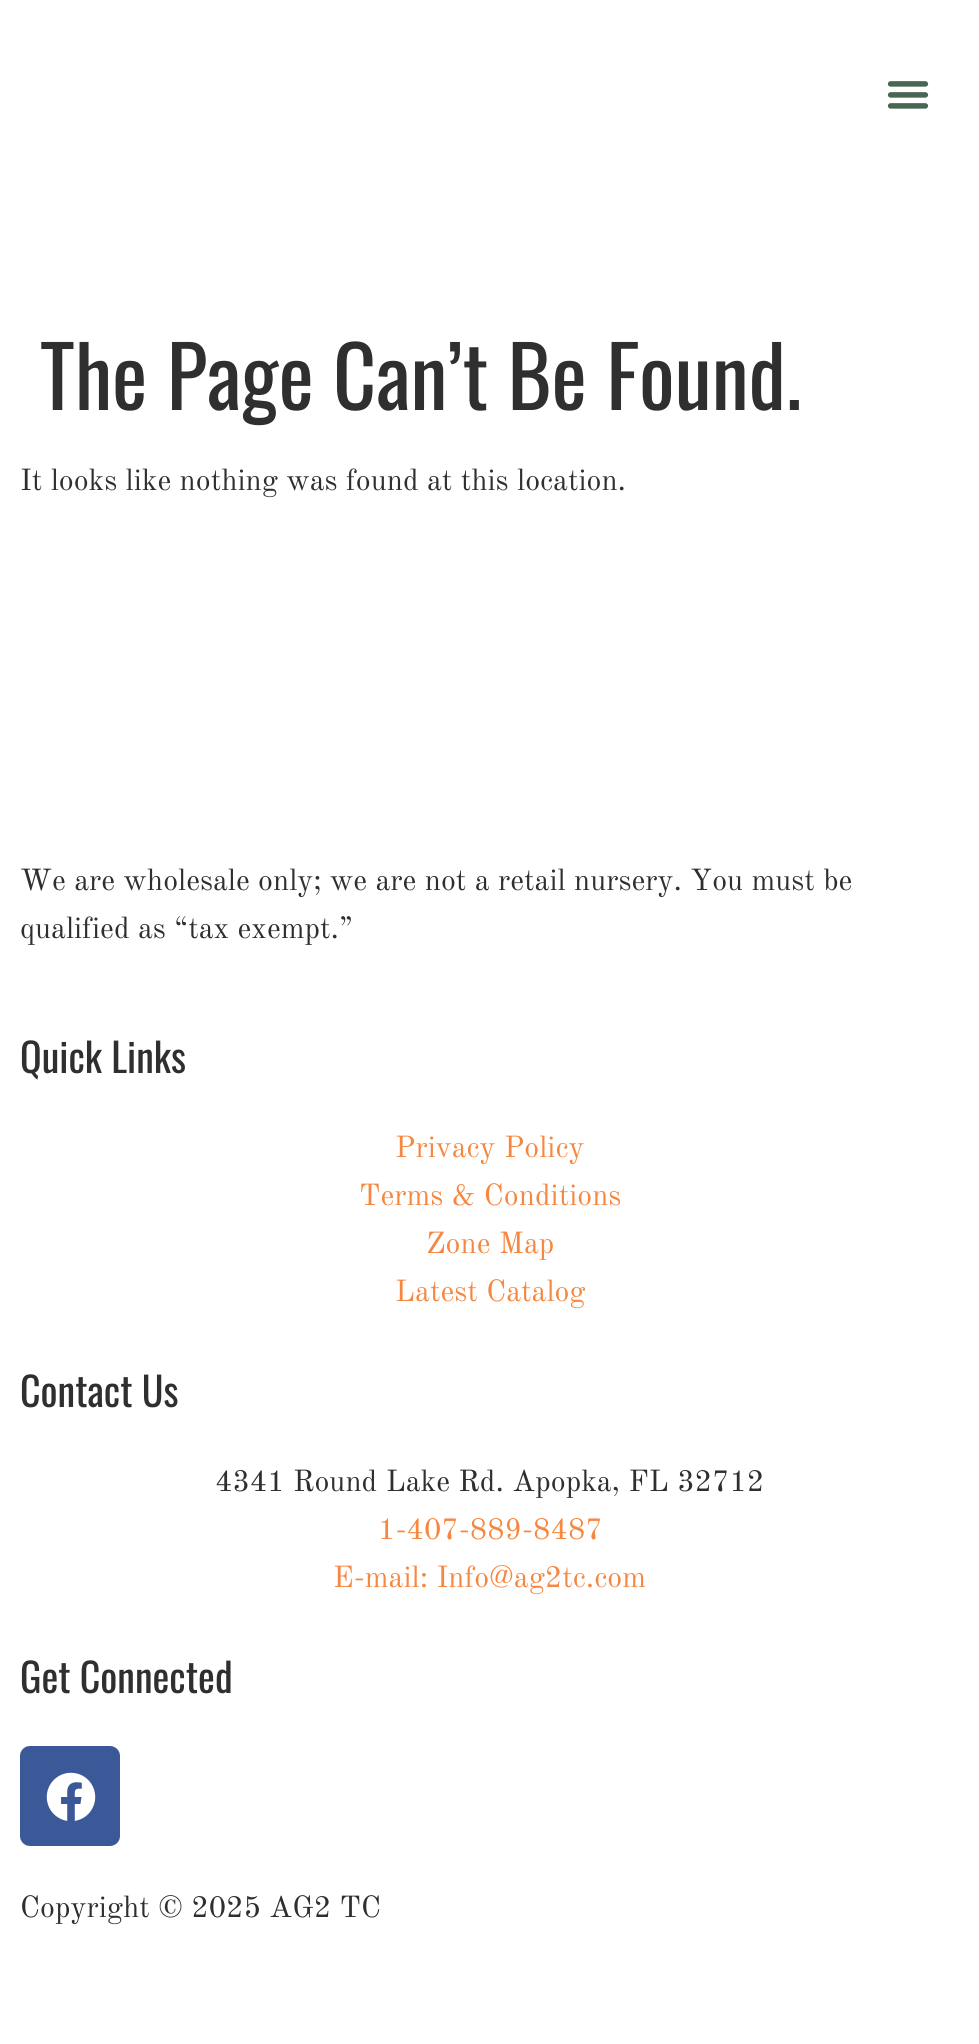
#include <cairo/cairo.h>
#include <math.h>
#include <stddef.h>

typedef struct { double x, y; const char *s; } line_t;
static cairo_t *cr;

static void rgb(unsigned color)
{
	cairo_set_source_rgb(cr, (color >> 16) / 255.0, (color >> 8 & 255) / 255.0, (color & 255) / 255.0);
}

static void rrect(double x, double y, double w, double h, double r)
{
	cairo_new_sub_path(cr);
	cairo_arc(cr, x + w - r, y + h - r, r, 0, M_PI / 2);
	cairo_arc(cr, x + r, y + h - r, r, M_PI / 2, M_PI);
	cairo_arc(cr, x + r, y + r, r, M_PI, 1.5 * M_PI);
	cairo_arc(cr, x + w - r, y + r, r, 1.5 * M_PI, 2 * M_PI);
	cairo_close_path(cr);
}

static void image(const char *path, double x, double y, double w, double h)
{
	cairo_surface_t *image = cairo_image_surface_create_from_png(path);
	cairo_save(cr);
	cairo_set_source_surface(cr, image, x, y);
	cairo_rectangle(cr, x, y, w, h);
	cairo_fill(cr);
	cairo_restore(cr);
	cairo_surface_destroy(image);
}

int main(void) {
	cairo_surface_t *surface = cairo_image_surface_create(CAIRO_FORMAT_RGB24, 979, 2044);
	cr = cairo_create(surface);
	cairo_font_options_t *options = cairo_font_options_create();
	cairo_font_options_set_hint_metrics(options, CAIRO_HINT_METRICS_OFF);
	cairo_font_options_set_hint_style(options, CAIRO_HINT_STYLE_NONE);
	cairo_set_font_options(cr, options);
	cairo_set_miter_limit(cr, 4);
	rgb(0xffffff);
	cairo_paint(cr);
	image("img/1.png", 887, 81, 42, 28);
	rgb(0x3b5998);
	rrect(20, 1746, 100, 100, 10);
	cairo_fill(cr);
	image("img/2.png", 46, 1772, 50, 49);
	cairo_select_font_face(cr, "Oswald", CAIRO_FONT_SLANT_NORMAL, CAIRO_FONT_WEIGHT_NORMAL);
	cairo_set_font_size(cr, 84);
	rgb(0x2f2f2f);
	cairo_move_to(cr, 40, 410);
	cairo_show_text(cr, "The Page Can’t Be Found.");
	cairo_select_font_face(cr, "Old Standard TT", CAIRO_FONT_SLANT_NORMAL, CAIRO_FONT_WEIGHT_NORMAL);
	cairo_set_font_size(cr, 30);
	{
		static const line_t items[] = {
			{20, 490, "It looks like nothing was found at this location."},
			{20, 890, "We are wholesale only; we are not a retail nursery. You must be"},
			{20, 938, "qualified as “tax exempt.”"},
		};
		for (size_t i = 0; i < sizeof items / sizeof *items; i++) {
			cairo_move_to(cr, items[i].x, items[i].y);
			cairo_show_text(cr, items[i].s);
		}
	}
	cairo_select_font_face(cr, "Oswald", CAIRO_FONT_SLANT_NORMAL, CAIRO_FONT_WEIGHT_NORMAL);
	cairo_set_font_size(cr, 40);
	cairo_move_to(cr, 20, 1073);
	cairo_show_text(cr, "Quick Links");
	cairo_select_font_face(cr, "Old Standard TT", CAIRO_FONT_SLANT_NORMAL, CAIRO_FONT_WEIGHT_NORMAL);
	cairo_set_font_size(cr, 30);
	rgb(0xf68740);
	{
		static const line_t items[] = {
			{395, 1157, "Privacy Policy"},
			{359, 1205, "Terms & Conditions"},
			{426, 1253, "Zone Map"},
			{395, 1301, "Latest Catalog"},
		};
		for (size_t i = 0; i < sizeof items / sizeof *items; i++) {
			cairo_move_to(cr, items[i].x, items[i].y);
			cairo_show_text(cr, items[i].s);
		}
	}
	cairo_select_font_face(cr, "Oswald", CAIRO_FONT_SLANT_NORMAL, CAIRO_FONT_WEIGHT_NORMAL);
	cairo_set_font_size(cr, 40);
	rgb(0x2f2f2f);
	cairo_move_to(cr, 20, 1407);
	cairo_show_text(cr, "Contact Us");
	cairo_select_font_face(cr, "Old Standard TT", CAIRO_FONT_SLANT_NORMAL, CAIRO_FONT_WEIGHT_NORMAL);
	cairo_set_font_size(cr, 30);
	cairo_move_to(cr, 215, 1491);
	cairo_show_text(cr, "4341 Round Lake Rd. Apopka, FL 32712");
	rgb(0xf68740);
	cairo_move_to(cr, 378, 1539);
	cairo_show_text(cr, "1-407-889-8487");
	cairo_move_to(cr, 333, 1587);
	cairo_show_text(cr, "E-mail: Info@ag2tc.com");
	cairo_select_font_face(cr, "Oswald", CAIRO_FONT_SLANT_NORMAL, CAIRO_FONT_WEIGHT_NORMAL);
	cairo_set_font_size(cr, 40);
	rgb(0x2f2f2f);
	cairo_move_to(cr, 20, 1693);
	cairo_show_text(cr, "Get Connected");
	cairo_select_font_face(cr, "Old Standard TT", CAIRO_FONT_SLANT_NORMAL, CAIRO_FONT_WEIGHT_NORMAL);
	cairo_set_font_size(cr, 30);
	cairo_move_to(cr, 20, 1917);
	cairo_show_text(cr, "Copyright © 2025 AG2 TC");
	cairo_surface_write_to_png(surface, "page.png");
	cairo_font_options_destroy(options);
	cairo_destroy(cr);
	cairo_surface_destroy(surface);
	return 0;
}
